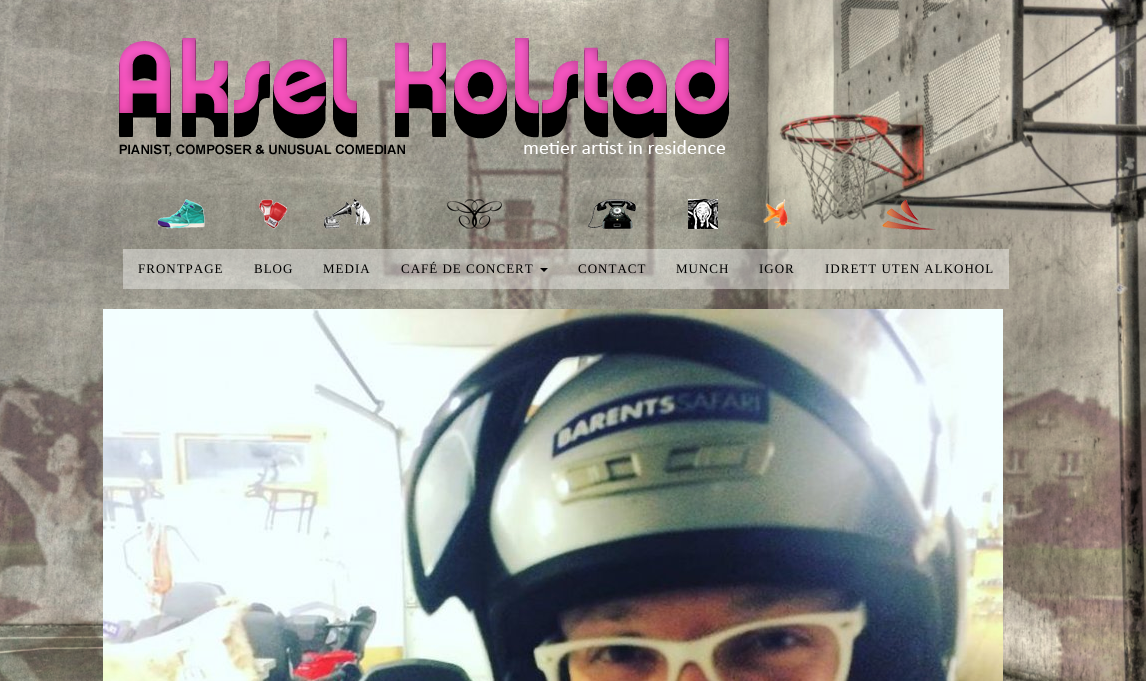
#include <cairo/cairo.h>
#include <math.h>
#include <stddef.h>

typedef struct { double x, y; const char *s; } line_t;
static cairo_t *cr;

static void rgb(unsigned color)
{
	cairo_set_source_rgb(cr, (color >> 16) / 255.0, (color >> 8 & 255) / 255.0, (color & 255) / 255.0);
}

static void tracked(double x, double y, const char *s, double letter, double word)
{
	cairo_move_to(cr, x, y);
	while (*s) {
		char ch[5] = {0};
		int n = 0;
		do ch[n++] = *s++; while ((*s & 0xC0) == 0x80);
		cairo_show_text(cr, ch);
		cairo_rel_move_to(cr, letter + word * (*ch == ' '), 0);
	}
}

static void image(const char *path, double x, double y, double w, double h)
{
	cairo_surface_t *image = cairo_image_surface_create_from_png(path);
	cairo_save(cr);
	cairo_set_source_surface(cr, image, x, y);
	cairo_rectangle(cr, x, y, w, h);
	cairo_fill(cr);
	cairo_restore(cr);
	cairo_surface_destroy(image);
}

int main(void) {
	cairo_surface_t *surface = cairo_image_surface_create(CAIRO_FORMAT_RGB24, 1146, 681);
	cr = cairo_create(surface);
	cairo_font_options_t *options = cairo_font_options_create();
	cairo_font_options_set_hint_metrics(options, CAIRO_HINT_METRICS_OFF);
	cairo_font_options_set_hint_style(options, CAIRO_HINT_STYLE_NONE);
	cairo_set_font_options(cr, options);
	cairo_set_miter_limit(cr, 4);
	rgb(0xffffff);
	cairo_paint(cr);
	image("img/1.png", 0, 0, 1146, 681);
	image("img/2.png", 119, 38, 610, 119);
	image("img/3.png", 157, 199, 48, 30);
	cairo_set_source_rgba(cr, 1, 1, 1, 0.4);
	cairo_rectangle(cr, 123, 249, 116, 40);
	cairo_fill(cr);
	image("img/4.png", 258, 199, 29, 30);
	cairo_rectangle(cr, 239, 249, 69, 40);
	cairo_fill(cr);
	image("img/5.png", 323, 199, 48, 30);
	cairo_rectangle(cr, 308, 249, 78, 40);
	cairo_fill(cr);
	image("img/6.png", 447, 199, 55, 30);
	cairo_rectangle(cr, 386, 249, 177, 40);
	cairo_fill(cr);
	rgb(0x000000);
	cairo_new_path(cr);
	cairo_move_to(cr, 540, 268);
	cairo_line_to(cr, 548, 268);
	cairo_line_to(cr, 544, 272);
	cairo_close_path(cr);
	cairo_fill(cr);
	image("img/7.png", 588, 199, 48, 30);
	cairo_set_source_rgba(cr, 1, 1, 1, 0.4);
	cairo_rectangle(cr, 563, 249, 98, 40);
	cairo_fill(cr);
	image("img/8.png", 688, 199, 30, 30);
	cairo_rectangle(cr, 661, 249, 83, 40);
	cairo_fill(cr);
	image("img/9.png", 763, 199, 29, 30);
	cairo_rectangle(cr, 744, 249, 66, 40);
	cairo_fill(cr);
	image("img/10.png", 882, 199, 54, 31);
	cairo_rectangle(cr, 810, 249, 199, 40);
	cairo_fill(cr);
	image("img/11.png", 103, 309, 900, 372);
	cairo_select_font_face(cr, "Liberation Serif", CAIRO_FONT_SLANT_NORMAL, CAIRO_FONT_WEIGHT_NORMAL);
	cairo_set_font_size(cr, 13);
	rgb(0x000000);
	{
		static const line_t items[] = {
			{138, 273, "FRONTPAGE"},
			{254, 273, "BLOG"},
			{323, 273, "MEDIA"},
			{401, 273, "CAFÉ DE CONCERT"},
			{578, 273, "CONTACT"},
			{676, 273, "MUNCH"},
			{759, 273, "IGOR"},
			{825, 273, "IDRETT UTEN ALKOHOL"},
		};
		for (size_t i = 0; i < sizeof items / sizeof *items; i++) {
			tracked(items[i].x, items[i].y, items[i].s, 1, 0);
		}
	}
	cairo_surface_write_to_png(surface, "page.png");
	cairo_font_options_destroy(options);
	cairo_destroy(cr);
	cairo_surface_destroy(surface);
	return 0;
}
